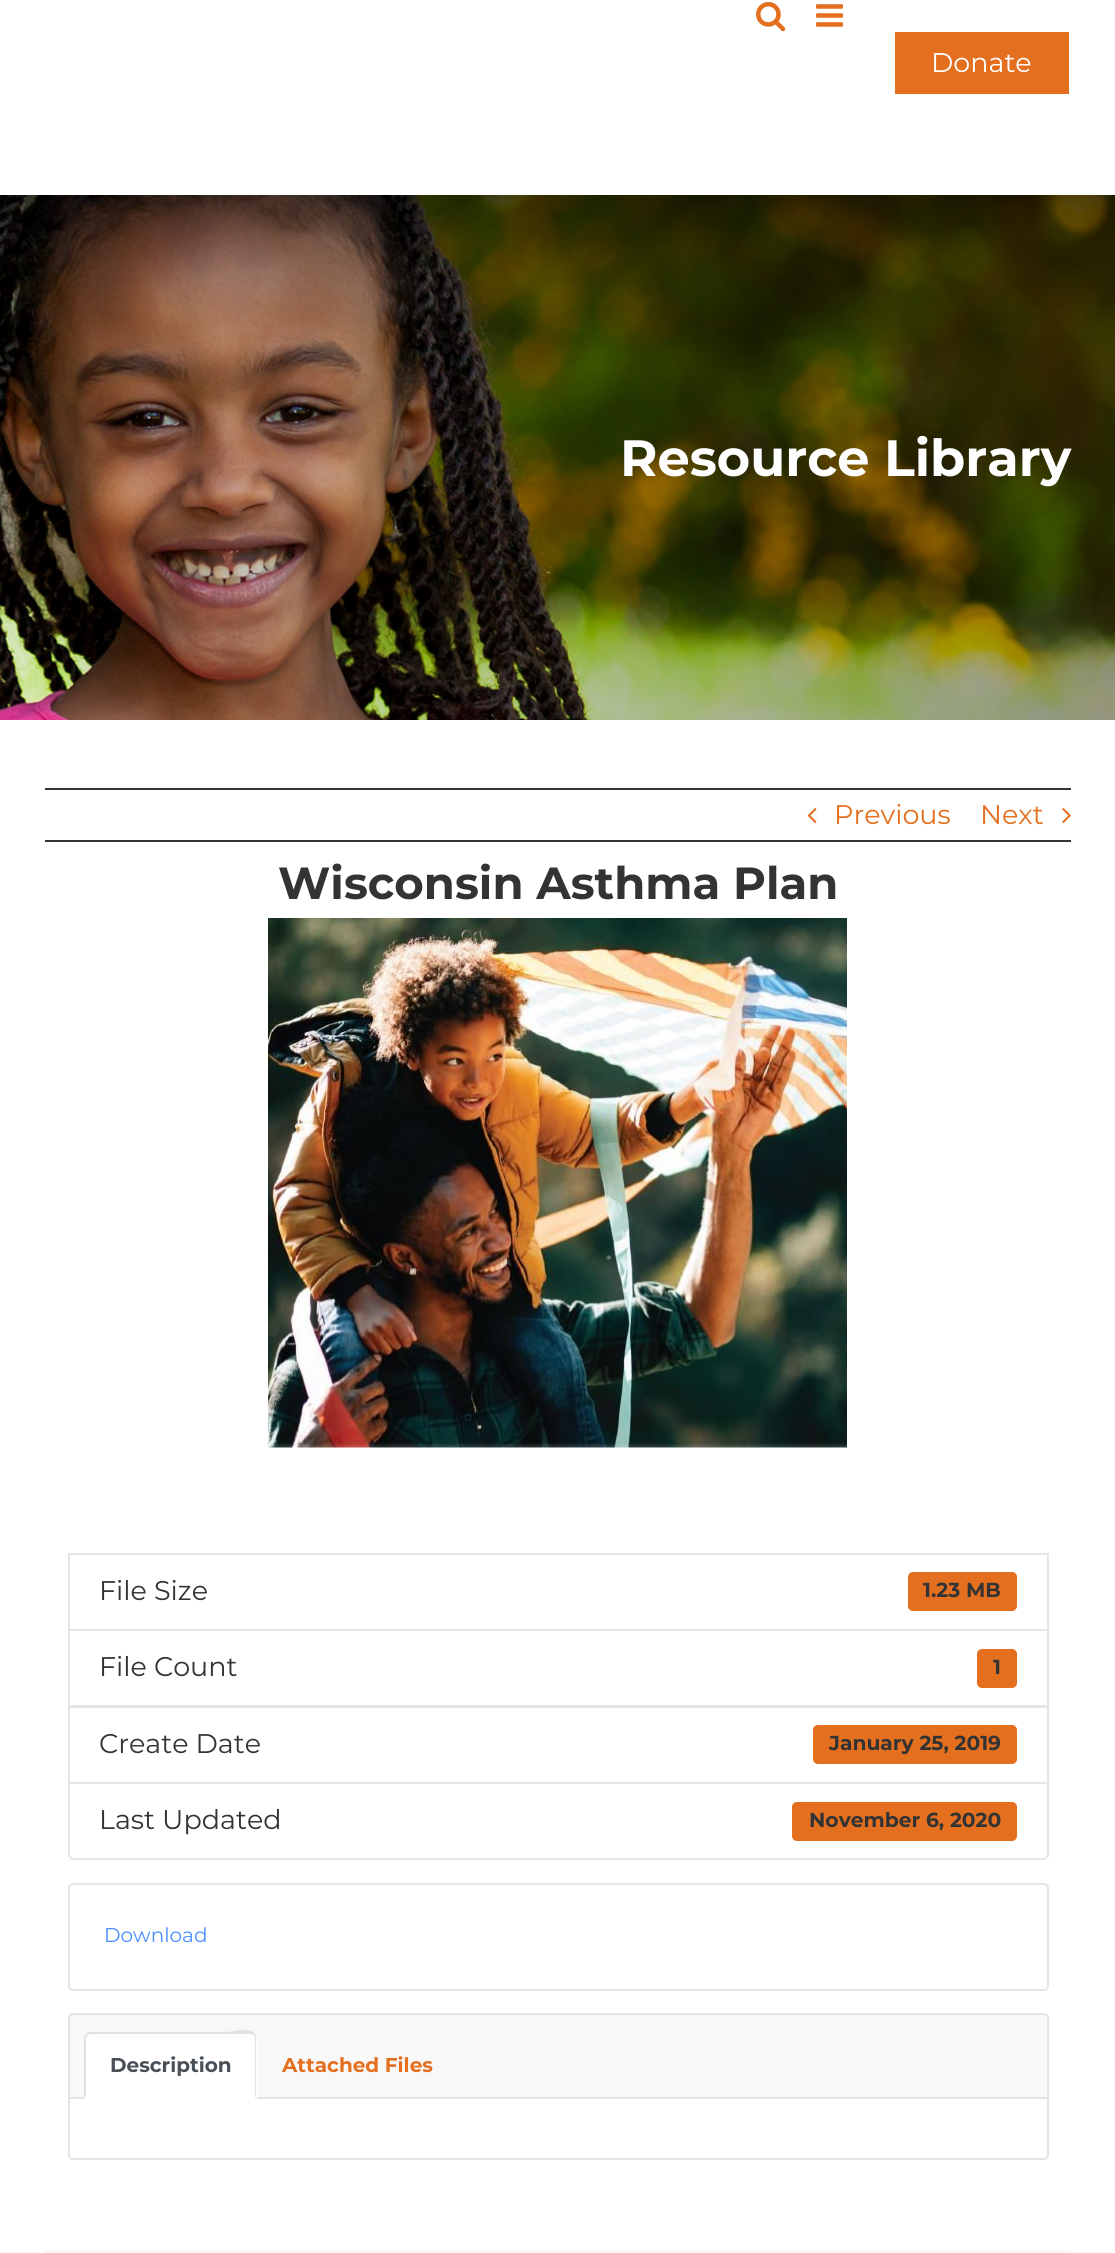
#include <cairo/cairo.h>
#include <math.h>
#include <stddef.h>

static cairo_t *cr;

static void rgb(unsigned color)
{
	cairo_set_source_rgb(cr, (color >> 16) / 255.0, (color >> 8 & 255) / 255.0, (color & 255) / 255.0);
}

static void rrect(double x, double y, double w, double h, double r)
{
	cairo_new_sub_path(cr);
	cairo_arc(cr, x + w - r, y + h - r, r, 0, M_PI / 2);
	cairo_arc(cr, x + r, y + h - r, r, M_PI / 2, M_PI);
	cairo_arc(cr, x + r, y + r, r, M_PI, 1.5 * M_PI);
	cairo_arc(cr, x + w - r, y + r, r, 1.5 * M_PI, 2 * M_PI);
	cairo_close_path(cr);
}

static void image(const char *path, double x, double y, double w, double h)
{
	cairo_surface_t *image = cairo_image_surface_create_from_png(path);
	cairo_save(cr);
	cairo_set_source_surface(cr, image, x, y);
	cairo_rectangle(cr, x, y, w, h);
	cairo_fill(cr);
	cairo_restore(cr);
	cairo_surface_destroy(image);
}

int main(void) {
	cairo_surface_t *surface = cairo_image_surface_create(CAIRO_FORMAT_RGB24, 1115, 2253);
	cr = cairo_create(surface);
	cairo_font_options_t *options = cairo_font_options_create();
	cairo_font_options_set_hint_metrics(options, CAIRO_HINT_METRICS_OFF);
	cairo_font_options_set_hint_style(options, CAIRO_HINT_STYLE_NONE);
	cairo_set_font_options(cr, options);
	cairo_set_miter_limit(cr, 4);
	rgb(0xffffff);
	cairo_paint(cr);
	image("img/1.png", 756, 2, 30, 30);
	image("img/2.png", 816, 4, 27, 23);
	rgb(0xe46f1f);
	cairo_rectangle(cr, 895, 32, 174, 62);
	cairo_fill(cr);
	image("img/3.png", 0, 195, 1115, 525);
	rgb(0x333333);
	cairo_rectangle(cr, 45, 788, 1026, 2);
	cairo_fill(cr);
	cairo_rectangle(cr, 45, 840, 1026, 2);
	cairo_fill(cr);
	image("img/4.png", 807, 808, 10, 15);
	image("img/5.png", 1062, 808, 9, 15);
	image("img/6.png", 268, 918, 579, 530);
	cairo_rectangle(cr, 69, 1554, 979, 76);
	rgb(0xe5e5e5);
	cairo_stroke(cr);
	rgb(0xe46f1f);
	rrect(908, 1572, 109, 39, 5);
	cairo_fill(cr);
	cairo_rectangle(cr, 69, 1630, 979, 76);
	rgb(0xe5e5e5);
	cairo_stroke(cr);
	rgb(0xe46f1f);
	rrect(977, 1649, 40, 39, 5);
	cairo_fill(cr);
	cairo_rectangle(cr, 69, 1707, 979, 76);
	rgb(0xe5e5e5);
	cairo_stroke(cr);
	rgb(0xe46f1f);
	rrect(813, 1725, 204, 39, 5);
	cairo_fill(cr);
	rgb(0xffffff);
	cairo_new_path(cr);
	cairo_move_to(cr, 69, 1783);
	cairo_line_to(cr, 1048, 1783);
	cairo_line_to(cr, 1048, 1854);
	cairo_curve_to(cr, 1048, 1857, 1046, 1859, 1043, 1859);
	cairo_line_to(cr, 74, 1859);
	cairo_curve_to(cr, 71, 1859, 69, 1857, 69, 1854);
	cairo_close_path(cr);
	cairo_fill_preserve(cr);
	rgb(0xe5e5e5);
	cairo_stroke(cr);
	rgb(0xe46f1f);
	rrect(792, 1802, 225, 39, 5);
	cairo_fill(cr);
	rrect(69, 1884, 979, 106, 4);
	rgb(0xe5e5e5);
	cairo_stroke(cr);
	rrect(69, 2014, 979, 145, 4);
	cairo_stroke(cr);
	cairo_set_source_rgba(cr, 0, 0, 0, 0.03);
	cairo_rectangle(cr, 69, 2015, 978, 82);
	cairo_fill(cr);
	rgb(0xe5e5e5);
	cairo_rectangle(cr, 69, 2097, 978, 2);
	cairo_fill(cr);
	rgb(0xffffff);
	cairo_new_path(cr);
	cairo_move_to(cr, 90, 2033);
	cairo_line_to(cr, 251, 2033);
	cairo_curve_to(cr, 254.5, 2033, 257, 2035.5, 257, 2039);
	cairo_line_to(cr, 257, 2099);
	cairo_line_to(cr, 84, 2099);
	cairo_line_to(cr, 84, 2039);
	cairo_curve_to(cr, 84, 2035.5, 86.5, 2033, 90, 2033);
	cairo_close_path(cr);
	cairo_fill(cr);
	rgb(0xdee2e6);
	cairo_new_path(cr);
	cairo_move_to(cr, 90, 2034);
	cairo_curve_to(cr, 89, 2034, 88, 2035, 87, 2036);
	cairo_line_to(cr, 86, 2034);
	cairo_line_to(cr, 88, 2032);
	cairo_line_to(cr, 225, 2032);
	cairo_curve_to(cr, 235, 2032, 249, 2026, 255, 2034);
	cairo_line_to(cr, 254, 2035);
	cairo_curve_to(cr, 253, 2035, 252, 2034, 250, 2034);
	cairo_close_path(cr);
	cairo_fill(cr);
	cairo_new_path(cr);
	cairo_move_to(cr, 255, 2034);
	cairo_curve_to(cr, 256, 2035, 256, 2037, 256, 2038);
	cairo_line_to(cr, 256, 2098);
	cairo_line_to(cr, 255, 2097);
	cairo_line_to(cr, 255, 2038);
	cairo_line_to(cr, 254, 2035);
	cairo_close_path(cr);
	cairo_fill(cr);
	rgb(0xffffff);
	cairo_new_path(cr);
	cairo_move_to(cr, 256, 2098);
	cairo_line_to(cr, 255, 2097);
	cairo_line_to(cr, 86, 2097);
	cairo_line_to(cr, 86, 2096);
	cairo_line_to(cr, 84, 2098);
	cairo_close_path(cr);
	cairo_fill(cr);
	rgb(0xdee2e6);
	cairo_new_path(cr);
	cairo_move_to(cr, 84, 2038);
	cairo_line_to(cr, 84, 2098);
	cairo_line_to(cr, 86, 2096);
	cairo_line_to(cr, 86, 2038);
	cairo_line_to(cr, 87, 2036);
	cairo_line_to(cr, 86, 2034);
	cairo_curve_to(cr, 85, 2035, 84, 2037, 84, 2038);
	cairo_close_path(cr);
	cairo_fill(cr);
	rgb(0xf6f6f6);
	cairo_rectangle(cr, 45, 2250, 1026, 3);
	cairo_fill(cr);
	cairo_select_font_face(cr, "Montserrat", CAIRO_FONT_SLANT_NORMAL, CAIRO_FONT_WEIGHT_NORMAL);
	cairo_set_font_size(cr, 27);
	rgb(0xffffff);
	cairo_move_to(cr, 931, 72);
	cairo_show_text(cr, "Donate");
	cairo_select_font_face(cr, "Montserrat", CAIRO_FONT_SLANT_NORMAL, CAIRO_FONT_WEIGHT_BOLD);
	cairo_set_font_size(cr, 51);
	cairo_move_to(cr, 620, 476);
	cairo_show_text(cr, "Resource Library");
	cairo_select_font_face(cr, "Montserrat", CAIRO_FONT_SLANT_NORMAL, CAIRO_FONT_WEIGHT_NORMAL);
	cairo_set_font_size(cr, 27);
	rgb(0xe46f1f);
	cairo_move_to(cr, 834, 824);
	cairo_show_text(cr, "Previous");
	cairo_move_to(cr, 980, 824);
	cairo_show_text(cr, "Next");
	cairo_select_font_face(cr, "Montserrat", CAIRO_FONT_SLANT_NORMAL, CAIRO_FONT_WEIGHT_BOLD);
	cairo_set_font_size(cr, 45);
	rgb(0x333333);
	cairo_move_to(cr, 278, 899);
	cairo_show_text(cr, "Wisconsin Asthma Plan");
	cairo_select_font_face(cr, "Montserrat", CAIRO_FONT_SLANT_NORMAL, CAIRO_FONT_WEIGHT_NORMAL);
	cairo_set_font_size(cr, 27);
	cairo_move_to(cr, 99, 1600);
	cairo_show_text(cr, "File Size");
	cairo_select_font_face(cr, "Montserrat", CAIRO_FONT_SLANT_NORMAL, CAIRO_FONT_WEIGHT_BOLD);
	cairo_set_font_size(cr, 20.25);
	cairo_move_to(cr, 923, 1597);
	cairo_show_text(cr, "1.23 MB");
	cairo_select_font_face(cr, "Montserrat", CAIRO_FONT_SLANT_NORMAL, CAIRO_FONT_WEIGHT_NORMAL);
	cairo_set_font_size(cr, 27);
	cairo_move_to(cr, 99, 1676);
	cairo_show_text(cr, "File Count");
	cairo_select_font_face(cr, "Montserrat", CAIRO_FONT_SLANT_NORMAL, CAIRO_FONT_WEIGHT_BOLD);
	cairo_set_font_size(cr, 20.25);
	cairo_move_to(cr, 993, 1674);
	cairo_show_text(cr, "1");
	cairo_select_font_face(cr, "Montserrat", CAIRO_FONT_SLANT_NORMAL, CAIRO_FONT_WEIGHT_NORMAL);
	cairo_set_font_size(cr, 27);
	cairo_move_to(cr, 99, 1753);
	cairo_show_text(cr, "Create Date");
	cairo_select_font_face(cr, "Montserrat", CAIRO_FONT_SLANT_NORMAL, CAIRO_FONT_WEIGHT_BOLD);
	cairo_set_font_size(cr, 20.25);
	cairo_move_to(cr, 829, 1750);
	cairo_show_text(cr, "January 25, 2019");
	cairo_select_font_face(cr, "Montserrat", CAIRO_FONT_SLANT_NORMAL, CAIRO_FONT_WEIGHT_NORMAL);
	cairo_set_font_size(cr, 27);
	cairo_move_to(cr, 99, 1829);
	cairo_show_text(cr, "Last Updated");
	cairo_select_font_face(cr, "Montserrat", CAIRO_FONT_SLANT_NORMAL, CAIRO_FONT_WEIGHT_BOLD);
	cairo_set_font_size(cr, 20.25);
	cairo_move_to(cr, 809, 1827);
	cairo_show_text(cr, "November 6, 2020");
	cairo_select_font_face(cr, "Montserrat", CAIRO_FONT_SLANT_NORMAL, CAIRO_FONT_WEIGHT_NORMAL);
	cairo_set_font_size(cr, 20);
	rgb(0x4a8eff);
	cairo_move_to(cr, 104, 1942);
	cairo_show_text(cr, "Download");
	cairo_select_font_face(cr, "Montserrat", CAIRO_FONT_SLANT_NORMAL, CAIRO_FONT_WEIGHT_BOLD);
	rgb(0x495057);
	cairo_move_to(cr, 110, 2072);
	cairo_show_text(cr, "Description");
	rgb(0xe46f1f);
	cairo_move_to(cr, 282, 2072);
	cairo_show_text(cr, "Attached Files");
	cairo_surface_write_to_png(surface, "page.png");
	cairo_font_options_destroy(options);
	cairo_destroy(cr);
	cairo_surface_destroy(surface);
	return 0;
}
